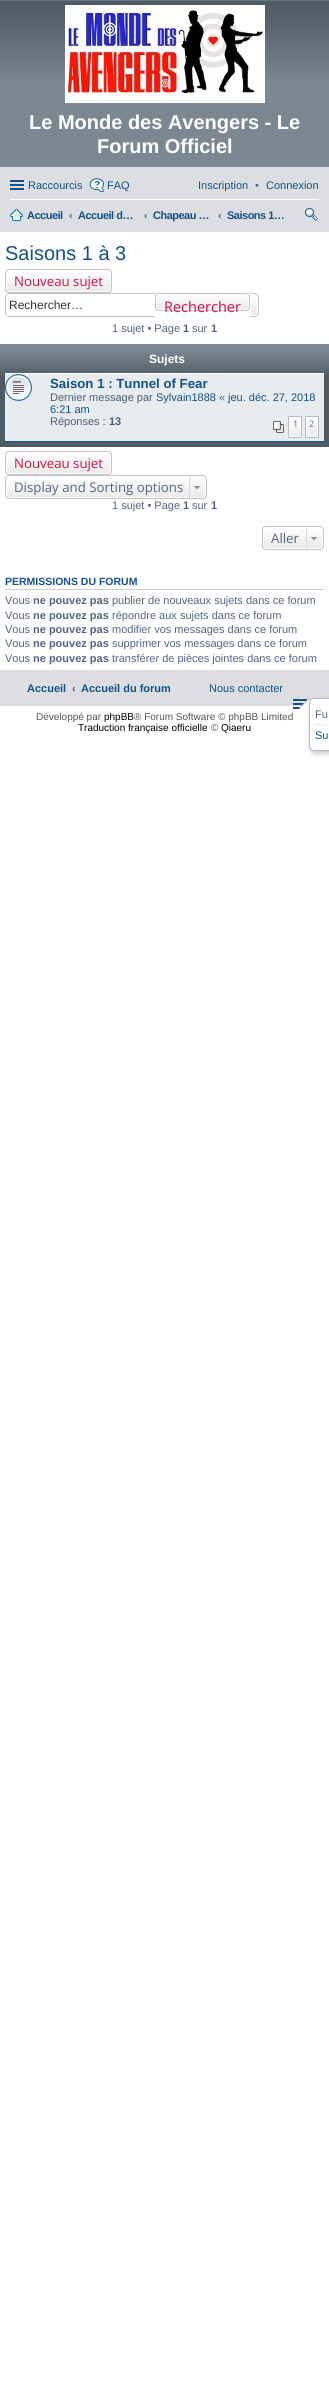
#include <cairo/cairo.h>
#include <math.h>
#include <stddef.h>

typedef struct { double x, y; const char *s; } line_t;
typedef struct { double x, y, w, h; unsigned color; } box_t;
static cairo_t *cr;

static void rgb(unsigned color)
{
	cairo_set_source_rgb(cr, (color >> 16) / 255.0, (color >> 8 & 255) / 255.0, (color & 255) / 255.0);
}

static void tracked(double x, double y, const char *s, double letter, double word)
{
	cairo_move_to(cr, x, y);
	while (*s) {
		char ch[5] = {0};
		int n = 0;
		do ch[n++] = *s++; while ((*s & 0xC0) == 0x80);
		cairo_show_text(cr, ch);
		cairo_rel_move_to(cr, letter + word * (*ch == ' '), 0);
	}
}

static void rrect(double x, double y, double w, double h, double r)
{
	cairo_new_sub_path(cr);
	cairo_arc(cr, x + w - r, y + h - r, r, 0, M_PI / 2);
	cairo_arc(cr, x + r, y + h - r, r, M_PI / 2, M_PI);
	cairo_arc(cr, x + r, y + r, r, M_PI, 1.5 * M_PI);
	cairo_arc(cr, x + w - r, y + r, r, 1.5 * M_PI, 2 * M_PI);
	cairo_close_path(cr);
}

static void soft_shadow(double x, double y, double w, double h, double r, double blur, double alpha)
{
	cairo_push_group_with_content(cr, CAIRO_CONTENT_ALPHA);
	cairo_set_operator(cr, CAIRO_OPERATOR_SOURCE);
	for (int i = 15; i >= -15 && fmin(w, h) + blur * i / 3 > 0; i -= 2) {
		double e = blur * i / 6;
		cairo_set_source_rgba(cr, 0, 0, 0, alpha * erfc((i - 1) / 8.5) / 2);
		rrect(x - e, y - e, w + 2 * e, h + 2 * e, fmax(0, fmin(r + e + blur * .6, fmin(w, h) / 2 + e)));
		cairo_fill(cr);
	}
	cairo_pattern_t *soft = cairo_pop_group(cr);
	cairo_mask(cr, soft);
	cairo_pattern_destroy(soft);
}

static void image(const char *path, double x, double y, double w, double h)
{
	cairo_surface_t *image = cairo_image_surface_create_from_png(path);
	cairo_save(cr);
	cairo_set_source_surface(cr, image, x, y);
	cairo_rectangle(cr, x, y, w, h);
	cairo_fill(cr);
	cairo_restore(cr);
	cairo_surface_destroy(image);
}

int main(void) {
	cairo_surface_t *surface = cairo_image_surface_create(CAIRO_FORMAT_RGB24, 329, 2387);
	cr = cairo_create(surface);
	cairo_font_options_t *options = cairo_font_options_create();
	cairo_font_options_set_hint_metrics(options, CAIRO_HINT_METRICS_OFF);
	cairo_font_options_set_hint_style(options, CAIRO_HINT_STYLE_NONE);
	cairo_set_font_options(cr, options);
	cairo_set_miter_limit(cr, 4);
	cairo_pattern_t *gradient;
	rgb(0xffffff);
	cairo_paint(cr);
	rgb(0x7c8891);
	cairo_rectangle(cr, 0, 79, 329, 88);
	cairo_fill(cr);
	image("img/1.png", 0, 0, 329, 79);
	image("img/2.png", 65, 5, 200, 98);
	{
		static const box_t items[] = {
			{0, 167, 329, 65, 0xdcdee2},
			{10, 180, 14, 2, 0x105289},
			{10, 184, 14, 2, 0x105289},
			{10, 188, 14, 2, 0x105289},
		};
		for (size_t i = 0; i < sizeof items / sizeof *items; i++) {
			rgb(items[i].color);
			cairo_rectangle(cr, items[i].x, items[i].y, items[i].w, items[i].h);
			cairo_fill(cr);
		}
	}
	image("img/3.png", 89, 178, 16, 14);
	rgb(0xffffff);
	cairo_rectangle(cr, 10, 199, 309, 1);
	cairo_fill(cr);
	image("img/4.png", 10, 209, 13, 12);
	image("img/5.png", 304, 208, 14, 13);
	cairo_save(cr);
	rrect(5, 269, 107, 24, 4);
	cairo_clip(cr);
	gradient = cairo_pattern_create_linear(59, 270, 59, 292);
	cairo_pattern_add_color_stop_rgba(gradient, 0, 1, 1, 1, 1);
	cairo_pattern_add_color_stop_rgba(gradient, 1, 0.914, 0.914, 0.914, 1);
	cairo_set_source(cr, gradient);
	cairo_pattern_destroy(gradient);
	cairo_rectangle(cr, 5, 270, 107, 22);
	cairo_fill(cr);
	cairo_restore(cr);
	rrect(6.5, 270.5, 104, 21, 2.5);
	cairo_set_line_width(cr, 1);
	cairo_stroke(cr);
	rrect(5.5, 269.5, 106, 23, 3.5);
	rgb(0xc7c3bf);
	cairo_stroke(cr);
	cairo_set_fill_rule(cr, CAIRO_FILL_RULE_EVEN_ODD);
	cairo_new_path(cr);
	cairo_move_to(cr, 9, 293);
	cairo_line_to(cr, 155, 293);
	cairo_line_to(cr, 155, 317);
	cairo_line_to(cr, 9, 317);
	cairo_curve_to(cr, 7, 317, 5, 315, 5, 313);
	cairo_line_to(cr, 5, 297);
	cairo_curve_to(cr, 5, 295, 7, 293, 9, 293);
	cairo_close_path(cr);
	cairo_move_to(cr, 9, 294);
	cairo_line_to(cr, 155, 294);
	cairo_line_to(cr, 155, 316);
	cairo_line_to(cr, 9, 316);
	cairo_curve_to(cr, 7, 316, 6, 315, 6, 313);
	cairo_line_to(cr, 6, 297);
	cairo_curve_to(cr, 6, 295, 7, 294, 9, 294);
	cairo_close_path(cr);
	cairo_fill(cr);
	cairo_save(cr);
	cairo_set_fill_rule(cr, CAIRO_FILL_RULE_WINDING);
	rrect(155, 293, 95, 18, 4);
	cairo_clip(cr);
	gradient = cairo_pattern_create_linear(203, 294, 203, 310);
	cairo_pattern_add_color_stop_rgba(gradient, 0, 1, 1, 1, 1);
	cairo_pattern_add_color_stop_rgba(gradient, 1, 0.914, 0.914, 0.914, 1);
	cairo_set_source(cr, gradient);
	cairo_pattern_destroy(gradient);
	cairo_rectangle(cr, 155, 294, 95, 16);
	cairo_fill(cr);
	cairo_restore(cr);
	rrect(156.5, 294.5, 92, 15, 2.5);
	rgb(0xffffff);
	cairo_stroke(cr);
	rrect(155.5, 293.5, 94, 17, 3.5);
	rgb(0xc7c3bf);
	cairo_stroke(cr);
	gradient = cairo_pattern_create_linear(254, 294, 254, 316);
	cairo_pattern_add_color_stop_rgba(gradient, 0, 1, 1, 1, 1);
	cairo_pattern_add_color_stop_rgba(gradient, 1, 0.914, 0.914, 0.914, 1);
	cairo_set_source(cr, gradient);
	cairo_pattern_destroy(gradient);
	cairo_new_path(cr);
	cairo_move_to(cr, 250.5, 294.5);
	cairo_line_to(cr, 255, 294.5);
	cairo_curve_to(cr, 256.5, 294.5, 257.5, 295.5, 257.5, 297);
	cairo_line_to(cr, 257.5, 313);
	cairo_curve_to(cr, 257.5, 314.5, 256.5, 315.5, 255, 315.5);
	cairo_line_to(cr, 250.5, 315.5);
	cairo_close_path(cr);
	cairo_fill_preserve(cr);
	rgb(0xffffff);
	cairo_stroke(cr);
	rgb(0xc7c3bf);
	cairo_new_path(cr);
	cairo_move_to(cr, 250, 293);
	cairo_line_to(cr, 255, 293);
	cairo_curve_to(cr, 257, 293, 259, 295, 259, 297);
	cairo_line_to(cr, 259, 313);
	cairo_curve_to(cr, 259, 315, 257, 317, 255, 317);
	cairo_line_to(cr, 250, 317);
	cairo_close_path(cr);
	cairo_move_to(cr, 250, 294);
	cairo_line_to(cr, 255, 294);
	cairo_curve_to(cr, 256.5, 294, 258, 295.5, 258, 297);
	cairo_line_to(cr, 258, 313);
	cairo_curve_to(cr, 258, 314.5, 256.5, 316, 255, 316);
	cairo_line_to(cr, 250, 316);
	cairo_close_path(cr);
	cairo_fill(cr);
	rgb(0x505c65);
	cairo_rectangle(cr, 0, 375, 329, 72);
	cairo_fill(cr);
	image("img/6.png", 0, 344, 329, 31);
	{
		static const box_t items[] = {
			{5, 374, 319, 67, 0xe8ecee},
			{5, 373, 319, 1, 0xffffff},
			{5, 441, 319, 1, 0x00608f},
		};
		for (size_t i = 0; i < sizeof items / sizeof *items; i++) {
			rgb(items[i].color);
			cairo_rectangle(cr, items[i].x, items[i].y, items[i].w, items[i].h);
			cairo_fill(cr);
		}
	}
	image("img/7.png", 5, 374, 27, 27);
	image("img/8.png", 273, 421, 11, 12);
	gradient = cairo_pattern_create_linear(295, 417, 295, 437);
	cairo_pattern_add_color_stop_rgba(gradient, 0, 1, 1, 1, 1);
	cairo_pattern_add_color_stop_rgba(gradient, 1, 0.914, 0.914, 0.914, 1);
	cairo_set_source(cr, gradient);
	cairo_pattern_destroy(gradient);
	cairo_rectangle(cr, 290, 418, 10, 18);
	cairo_fill(cr);
	cairo_rectangle(cr, 289.5, 417.5, 11, 19);
	rgb(0xffffff);
	cairo_stroke(cr);
	rrect(288.5, 416.5, 13, 21, 0.5);
	rgb(0xb4bac0);
	cairo_stroke(cr);
	gradient = cairo_pattern_create_linear(312, 417, 312, 437);
	cairo_pattern_add_color_stop_rgba(gradient, 0, 1, 1, 1, 1);
	cairo_pattern_add_color_stop_rgba(gradient, 1, 0.914, 0.914, 0.914, 1);
	cairo_set_source(cr, gradient);
	cairo_pattern_destroy(gradient);
	cairo_rectangle(cr, 307, 418, 10, 18);
	cairo_fill(cr);
	cairo_rectangle(cr, 306.5, 417.5, 11, 19);
	rgb(0xffffff);
	cairo_stroke(cr);
	rrect(305.5, 416.5, 13, 21, 0.5);
	rgb(0xb4bac0);
	cairo_stroke(cr);
	cairo_save(cr);
	cairo_set_fill_rule(cr, CAIRO_FILL_RULE_WINDING);
	rrect(5, 451, 107, 24, 4);
	cairo_clip(cr);
	gradient = cairo_pattern_create_linear(59, 452, 59, 474);
	cairo_pattern_add_color_stop_rgba(gradient, 0, 1, 1, 1, 1);
	cairo_pattern_add_color_stop_rgba(gradient, 1, 0.914, 0.914, 0.914, 1);
	cairo_set_source(cr, gradient);
	cairo_pattern_destroy(gradient);
	cairo_rectangle(cr, 5, 452, 107, 22);
	cairo_fill(cr);
	cairo_restore(cr);
	rrect(6.5, 452.5, 104, 21, 2.5);
	rgb(0xffffff);
	cairo_stroke(cr);
	rrect(5.5, 451.5, 106, 23, 3.5);
	rgb(0xc7c3bf);
	cairo_stroke(cr);
	cairo_save(cr);
	cairo_set_fill_rule(cr, CAIRO_FILL_RULE_WINDING);
	rrect(5, 475, 202, 24, 4);
	cairo_clip(cr);
	gradient = cairo_pattern_create_linear(106, 476, 106, 498);
	cairo_pattern_add_color_stop_rgba(gradient, 0, 1, 1, 1, 1);
	cairo_pattern_add_color_stop_rgba(gradient, 1, 0.914, 0.914, 0.914, 1);
	cairo_set_source(cr, gradient);
	cairo_pattern_destroy(gradient);
	cairo_rectangle(cr, 5, 476, 202, 22);
	cairo_fill(cr);
	cairo_restore(cr);
	rrect(6.5, 476.5, 199, 21, 2.5);
	rgb(0xffffff);
	cairo_stroke(cr);
	rrect(5.5, 475.5, 201, 23, 3.5);
	rgb(0xc7c3bf);
	cairo_stroke(cr);
	image("img/9.png", 193, 486, 8, 4);
	rgb(0xdadada);
	cairo_rectangle(cr, 189, 476, 1, 22);
	cairo_fill(cr);
	cairo_save(cr);
	cairo_set_fill_rule(cr, CAIRO_FILL_RULE_WINDING);
	rrect(262, 526, 62, 24, 4);
	cairo_clip(cr);
	gradient = cairo_pattern_create_linear(293, 527, 293, 549);
	cairo_pattern_add_color_stop_rgba(gradient, 0, 1, 1, 1, 1);
	cairo_pattern_add_color_stop_rgba(gradient, 1, 0.914, 0.914, 0.914, 1);
	cairo_set_source(cr, gradient);
	cairo_pattern_destroy(gradient);
	cairo_rectangle(cr, 262, 527, 62, 22);
	cairo_fill(cr);
	cairo_restore(cr);
	rrect(263.5, 527.5, 59, 21, 2.5);
	rgb(0xffffff);
	cairo_stroke(cr);
	rrect(262.5, 526.5, 61, 23, 3.5);
	rgb(0xc7c3bf);
	cairo_stroke(cr);
	image("img/9.png", 310, 537, 8, 4);
	{
		static const box_t items[] = {
			{306, 527, 1, 22, 0xdadada},
			{5, 589, 319, 1, 0xcccccc},
			{0, 670, 329, 36, 0xdcdee2},
			{293, 699, 14, 2, 0x105289},
			{293, 703, 14, 2, 0x105289},
			{293, 707, 14, 2, 0x105289},
		};
		for (size_t i = 0; i < sizeof items / sizeof *items; i++) {
			rgb(items[i].color);
			cairo_rectangle(cr, items[i].x, items[i].y, items[i].w, items[i].h);
			cairo_fill(cr);
		}
	}
	rgb(0xb9b9b9);
	cairo_set_fill_rule(cr, CAIRO_FILL_RULE_WINDING);
	cairo_new_path(cr);
	cairo_move_to(cr, 319, 708);
	cairo_line_to(cr, 299, 708);
	cairo_line_to(cr, 309, 698);
	cairo_close_path(cr);
	cairo_fill(cr);
	rgb(0xffffff);
	cairo_new_path(cr);
	cairo_move_to(cr, 319, 709);
	cairo_line_to(cr, 299, 709);
	cairo_line_to(cr, 309, 699);
	cairo_close_path(cr);
	cairo_fill(cr);
	rgb(0x000000);
	soft_shadow(310, 701, 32, 53, 5, 2.5, 0.2);
	rgb(0xffffff);
	rrect(309.5, 698.5, 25, 52, 4.5);
	cairo_fill_preserve(cr);
	rgb(0xb9b9b9);
	cairo_stroke(cr);
	cairo_new_path(cr);
	cairo_move_to(cr, 315, 724.5);
	cairo_line_to(cr, 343, 724.5);
	rgb(0xdcdcdc);
	cairo_set_dash(cr, (double[]){1, 1}, 2, 0);
	cairo_stroke(cr);
	cairo_select_font_face(cr, "Liberation Sans", CAIRO_FONT_SLANT_NORMAL, CAIRO_FONT_WEIGHT_BOLD);
	cairo_set_font_size(cr, 20);
	rgb(0xffffff);
	cairo_move_to(cr, 29, 129);
	cairo_show_text(cr, "Le Monde des Avengers - Le");
	cairo_move_to(cr, 97, 153);
	cairo_show_text(cr, "Forum Officiel");
	cairo_select_font_face(cr, "Liberation Sans", CAIRO_FONT_SLANT_NORMAL, CAIRO_FONT_WEIGHT_NORMAL);
	cairo_set_font_size(cr, 11);
	rgb(0x105289);
	{
		static const line_t items[] = {
			{28, 189, "Raccourcis"},
			{107, 189, "FAQ"},
			{198, 189, "Inscription"},
		};
		for (size_t i = 0; i < sizeof items / sizeof *items; i++) {
			cairo_move_to(cr, items[i].x, items[i].y);
			cairo_show_text(cr, items[i].s);
		}
	}
	rgb(0x536482);
	cairo_move_to(cr, 255, 189);
	cairo_show_text(cr, "•");
	rgb(0x105289);
	cairo_move_to(cr, 266, 189);
	cairo_show_text(cr, "Connexion");
	cairo_select_font_face(cr, "Liberation Sans", CAIRO_FONT_SLANT_NORMAL, CAIRO_FONT_WEIGHT_BOLD);
	tracked(27, 219, "Accueil", -0.5, 0);
	rgb(0x536482);
	cairo_move_to(cr, 69, 219);
	cairo_show_text(cr, "‹");
	rgb(0x105289);
	tracked(78, 219, "Accueil d…", -0.5, 0);
	rgb(0x536482);
	cairo_move_to(cr, 144, 219);
	cairo_show_text(cr, "‹");
	rgb(0x105289);
	tracked(153, 219, "Chapeau …", -0.5, 0);
	rgb(0x536482);
	cairo_move_to(cr, 218, 219);
	cairo_show_text(cr, "‹");
	rgb(0x105289);
	tracked(227, 219, "Saisons 1…", -0.5, 0);
	cairo_select_font_face(cr, "Liberation Sans", CAIRO_FONT_SLANT_NORMAL, CAIRO_FONT_WEIGHT_NORMAL);
	cairo_set_font_size(cr, 20);
	cairo_move_to(cr, 5, 260);
	cairo_show_text(cr, "Saisons 1 à 3");
	cairo_select_font_face(cr, "Open Sans", CAIRO_FONT_SLANT_NORMAL, CAIRO_FONT_WEIGHT_NORMAL);
	cairo_set_font_size(cr, 13.25);
	rgb(0xd31141);
	cairo_move_to(cr, 14, 286);
	cairo_show_text(cr, "Nouveau sujet");
	cairo_select_font_face(cr, "Liberation Sans", CAIRO_FONT_SLANT_NORMAL, CAIRO_FONT_WEIGHT_NORMAL);
	cairo_set_font_size(cr, 12);
	rgb(0x333333);
	cairo_move_to(cr, 9, 309);
	cairo_show_text(cr, "Rechercher…");
	cairo_select_font_face(cr, "Open Sans", CAIRO_FONT_SLANT_NORMAL, CAIRO_FONT_WEIGHT_NORMAL);
	cairo_set_font_size(cr, 14.5);
	rgb(0xd31141);
	cairo_move_to(cr, 164, 312);
	cairo_show_text(cr, "Rechercher");
	cairo_select_font_face(cr, "Liberation Sans", CAIRO_FONT_SLANT_NORMAL, CAIRO_FONT_WEIGHT_NORMAL);
	cairo_set_font_size(cr, 11);
	rgb(0x536482);
	cairo_move_to(cr, 112, 332);
	cairo_show_text(cr, "1 sujet • Page");
	cairo_select_font_face(cr, "Liberation Sans", CAIRO_FONT_SLANT_NORMAL, CAIRO_FONT_WEIGHT_BOLD);
	cairo_move_to(cr, 183, 332);
	cairo_show_text(cr, "1");
	cairo_select_font_face(cr, "Liberation Sans", CAIRO_FONT_SLANT_NORMAL, CAIRO_FONT_WEIGHT_NORMAL);
	cairo_move_to(cr, 192, 332);
	cairo_show_text(cr, "sur");
	cairo_select_font_face(cr, "Liberation Sans", CAIRO_FONT_SLANT_NORMAL, CAIRO_FONT_WEIGHT_BOLD);
	cairo_move_to(cr, 211, 332);
	cairo_show_text(cr, "1");
	cairo_set_font_size(cr, 12);
	rgb(0xffffff);
	cairo_move_to(cr, 149, 363);
	cairo_show_text(cr, "Sujets");
	cairo_set_font_size(cr, 13.25);
	rgb(0x105289);
	cairo_move_to(cr, 50, 388);
	cairo_show_text(cr, "Saison 1 : Tunnel of Fear");
	cairo_select_font_face(cr, "Liberation Sans", CAIRO_FONT_SLANT_NORMAL, CAIRO_FONT_WEIGHT_NORMAL);
	cairo_set_font_size(cr, 11);
	rgb(0x4c5d77);
	cairo_move_to(cr, 50, 401);
	cairo_show_text(cr, "Dernier message par");
	rgb(0x105289);
	cairo_move_to(cr, 156, 401);
	cairo_show_text(cr, "Sylvain1888");
	rgb(0x4c5d77);
	cairo_move_to(cr, 219, 401);
	cairo_show_text(cr, "«");
	rgb(0x105289);
	cairo_move_to(cr, 228, 401);
	cairo_show_text(cr, "jeu. déc. 27, 2018");
	cairo_move_to(cr, 50, 413);
	cairo_show_text(cr, "6:21 am");
	rgb(0x4c5d77);
	cairo_move_to(cr, 50, 425);
	cairo_show_text(cr, "Réponses :");
	cairo_select_font_face(cr, "Liberation Sans", CAIRO_FONT_SLANT_NORMAL, CAIRO_FONT_WEIGHT_BOLD);
	cairo_move_to(cr, 109, 425);
	cairo_show_text(cr, "13");
	cairo_select_font_face(cr, "Open Sans", CAIRO_FONT_SLANT_NORMAL, CAIRO_FONT_WEIGHT_NORMAL);
	cairo_set_font_size(cr, 9);
	rgb(0x5c758c);
	cairo_move_to(cr, 293, 427);
	cairo_show_text(cr, "1");
	cairo_move_to(cr, 309, 427);
	cairo_show_text(cr, "2");
	cairo_set_font_size(cr, 13.25);
	rgb(0xd31141);
	cairo_move_to(cr, 14, 468);
	cairo_show_text(cr, "Nouveau sujet");
	rgb(0x536482);
	cairo_move_to(cr, 14, 492);
	cairo_show_text(cr, "Display and Sorting options");
	cairo_select_font_face(cr, "Liberation Sans", CAIRO_FONT_SLANT_NORMAL, CAIRO_FONT_WEIGHT_NORMAL);
	cairo_set_font_size(cr, 11);
	cairo_move_to(cr, 112, 509);
	cairo_show_text(cr, "1 sujet • Page");
	cairo_select_font_face(cr, "Liberation Sans", CAIRO_FONT_SLANT_NORMAL, CAIRO_FONT_WEIGHT_BOLD);
	cairo_move_to(cr, 183, 509);
	cairo_show_text(cr, "1");
	cairo_select_font_face(cr, "Liberation Sans", CAIRO_FONT_SLANT_NORMAL, CAIRO_FONT_WEIGHT_NORMAL);
	cairo_move_to(cr, 192, 509);
	cairo_show_text(cr, "sur");
	cairo_select_font_face(cr, "Liberation Sans", CAIRO_FONT_SLANT_NORMAL, CAIRO_FONT_WEIGHT_BOLD);
	cairo_move_to(cr, 211, 509);
	cairo_show_text(cr, "1");
	cairo_select_font_face(cr, "Open Sans", CAIRO_FONT_SLANT_NORMAL, CAIRO_FONT_WEIGHT_NORMAL);
	cairo_set_font_size(cr, 13.25);
	cairo_move_to(cr, 271, 543);
	cairo_show_text(cr, "Aller");
	cairo_select_font_face(cr, "Liberation Sans", CAIRO_FONT_SLANT_NORMAL, CAIRO_FONT_WEIGHT_BOLD);
	cairo_set_font_size(cr, 10.5);
	rgb(0x115098);
	cairo_move_to(cr, 5, 585);
	cairo_show_text(cr, "PERMISSIONS DU FORUM");
	cairo_select_font_face(cr, "Liberation Sans", CAIRO_FONT_SLANT_NORMAL, CAIRO_FONT_WEIGHT_NORMAL);
	cairo_set_font_size(cr, 11);
	rgb(0x536482);
	cairo_move_to(cr, 5, 604);
	cairo_show_text(cr, "Vous");
	cairo_select_font_face(cr, "Liberation Sans", CAIRO_FONT_SLANT_NORMAL, CAIRO_FONT_WEIGHT_BOLD);
	cairo_move_to(cr, 33, 604);
	cairo_show_text(cr, "ne pouvez pas");
	cairo_select_font_face(cr, "Liberation Sans", CAIRO_FONT_SLANT_NORMAL, CAIRO_FONT_WEIGHT_NORMAL);
	cairo_move_to(cr, 112, 604);
	cairo_show_text(cr, "publier de nouveaux sujets dans ce forum");
	cairo_move_to(cr, 5, 619);
	cairo_show_text(cr, "Vous");
	cairo_select_font_face(cr, "Liberation Sans", CAIRO_FONT_SLANT_NORMAL, CAIRO_FONT_WEIGHT_BOLD);
	cairo_move_to(cr, 33, 619);
	cairo_show_text(cr, "ne pouvez pas");
	cairo_select_font_face(cr, "Liberation Sans", CAIRO_FONT_SLANT_NORMAL, CAIRO_FONT_WEIGHT_NORMAL);
	cairo_move_to(cr, 112, 619);
	cairo_show_text(cr, "répondre aux sujets dans ce forum");
	cairo_move_to(cr, 5, 633);
	cairo_show_text(cr, "Vous");
	cairo_select_font_face(cr, "Liberation Sans", CAIRO_FONT_SLANT_NORMAL, CAIRO_FONT_WEIGHT_BOLD);
	cairo_move_to(cr, 33, 633);
	cairo_show_text(cr, "ne pouvez pas");
	cairo_select_font_face(cr, "Liberation Sans", CAIRO_FONT_SLANT_NORMAL, CAIRO_FONT_WEIGHT_NORMAL);
	cairo_move_to(cr, 112, 633);
	cairo_show_text(cr, "modifier vos messages dans ce forum");
	cairo_move_to(cr, 5, 647);
	cairo_show_text(cr, "Vous");
	cairo_select_font_face(cr, "Liberation Sans", CAIRO_FONT_SLANT_NORMAL, CAIRO_FONT_WEIGHT_BOLD);
	cairo_move_to(cr, 33, 647);
	cairo_show_text(cr, "ne pouvez pas");
	cairo_select_font_face(cr, "Liberation Sans", CAIRO_FONT_SLANT_NORMAL, CAIRO_FONT_WEIGHT_NORMAL);
	cairo_move_to(cr, 112, 647);
	cairo_show_text(cr, "supprimer vos messages dans ce forum");
	cairo_move_to(cr, 5, 662);
	cairo_show_text(cr, "Vous");
	cairo_select_font_face(cr, "Liberation Sans", CAIRO_FONT_SLANT_NORMAL, CAIRO_FONT_WEIGHT_BOLD);
	cairo_move_to(cr, 33, 662);
	cairo_show_text(cr, "ne pouvez pas");
	cairo_select_font_face(cr, "Liberation Sans", CAIRO_FONT_SLANT_NORMAL, CAIRO_FONT_WEIGHT_NORMAL);
	cairo_move_to(cr, 112, 662);
	cairo_show_text(cr, "transférer de pièces jointes dans ce forum");
	cairo_select_font_face(cr, "Liberation Sans", CAIRO_FONT_SLANT_NORMAL, CAIRO_FONT_WEIGHT_BOLD);
	rgb(0x105289);
	cairo_move_to(cr, 27, 692);
	cairo_show_text(cr, "Accueil");
	rgb(0x536482);
	cairo_move_to(cr, 72, 692);
	cairo_show_text(cr, "‹");
	rgb(0x105289);
	cairo_move_to(cr, 81, 692);
	cairo_show_text(cr, "Accueil du forum");
	cairo_select_font_face(cr, "Liberation Sans", CAIRO_FONT_SLANT_NORMAL, CAIRO_FONT_WEIGHT_NORMAL);
	cairo_move_to(cr, 209, 692);
	cairo_show_text(cr, "Nous contacter");
	rgb(0x536482);
	cairo_move_to(cr, 315, 718);
	cairo_show_text(cr, "Fu");
	rgb(0x105289);
	cairo_move_to(cr, 315, 739);
	cairo_show_text(cr, "Su");
	cairo_set_font_size(cr, 10);
	rgb(0x555555);
	cairo_move_to(cr, 36, 720);
	cairo_show_text(cr, "Développé par");
	rgb(0x000000);
	cairo_move_to(cr, 104, 720);
	cairo_show_text(cr, "phpBB");
	rgb(0x555555);
	cairo_move_to(cr, 134, 720);
	cairo_show_text(cr, "® Forum Software © phpBB Limited");
	rgb(0x000000);
	cairo_move_to(cr, 78, 731);
	cairo_show_text(cr, "Traduction française officielle");
	rgb(0x555555);
	cairo_move_to(cr, 211, 731);
	cairo_show_text(cr, "©");
	rgb(0x000000);
	cairo_move_to(cr, 221, 731);
	cairo_show_text(cr, "Qiaeru");
	cairo_surface_write_to_png(surface, "page.png");
	cairo_font_options_destroy(options);
	cairo_destroy(cr);
	cairo_surface_destroy(surface);
	return 0;
}
